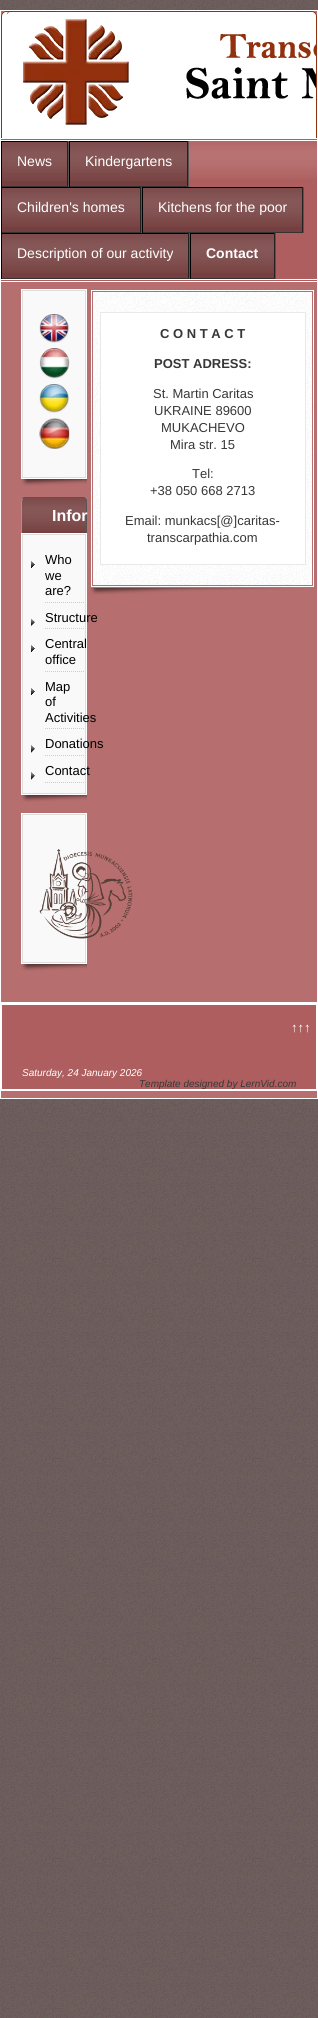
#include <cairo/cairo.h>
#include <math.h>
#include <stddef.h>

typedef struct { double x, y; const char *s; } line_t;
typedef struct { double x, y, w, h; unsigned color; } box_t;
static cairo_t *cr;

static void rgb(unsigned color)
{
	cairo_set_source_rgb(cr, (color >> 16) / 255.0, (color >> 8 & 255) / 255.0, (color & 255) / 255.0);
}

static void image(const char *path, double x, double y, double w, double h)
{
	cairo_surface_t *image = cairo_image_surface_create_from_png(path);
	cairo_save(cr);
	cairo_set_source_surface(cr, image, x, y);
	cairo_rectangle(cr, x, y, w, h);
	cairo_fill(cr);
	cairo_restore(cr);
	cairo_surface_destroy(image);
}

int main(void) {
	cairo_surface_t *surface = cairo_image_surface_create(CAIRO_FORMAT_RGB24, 318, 2018);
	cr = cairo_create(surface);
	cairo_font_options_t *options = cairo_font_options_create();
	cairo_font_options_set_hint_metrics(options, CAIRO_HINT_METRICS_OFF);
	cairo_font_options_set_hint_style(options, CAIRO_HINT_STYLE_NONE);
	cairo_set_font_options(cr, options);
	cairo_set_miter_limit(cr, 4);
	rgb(0x61504f);
	cairo_paint(cr);
	image("img/1.png", 0, 0, 318, 2018);
	rgb(0xb66e6e);
	cairo_rectangle(cr, 0.5, 10.5, 317, 992);
	cairo_fill_preserve(cr);
	rgb(0xffffff);
	cairo_set_line_width(cr, 1);
	cairo_stroke(cr);
	cairo_new_path(cr);
	cairo_move_to(cr, 6, 11);
	cairo_line_to(cr, 312, 11);
	cairo_curve_to(cr, 315, 11, 317, 13, 317, 16);
	cairo_line_to(cr, 317, 138);
	cairo_line_to(cr, 1, 138);
	cairo_line_to(cr, 1, 16);
	cairo_curve_to(cr, 1, 13, 3, 11, 6, 11);
	cairo_close_path(cr);
	cairo_fill(cr);
	rgb(0x92300d);
	cairo_set_fill_rule(cr, CAIRO_FILL_RULE_EVEN_ODD);
	cairo_new_path(cr);
	cairo_move_to(cr, 6, 11);
	cairo_line_to(cr, 312, 11);
	cairo_curve_to(cr, 315, 11, 317, 13, 317, 16);
	cairo_line_to(cr, 317, 138);
	cairo_line_to(cr, 1, 138);
	cairo_line_to(cr, 1, 16);
	cairo_curve_to(cr, 1, 13, 3, 11, 6, 11);
	cairo_close_path(cr);
	cairo_move_to(cr, 6, 12);
	cairo_line_to(cr, 312, 12);
	cairo_curve_to(cr, 314, 12, 316, 14, 316, 16);
	cairo_line_to(cr, 316, 138);
	cairo_line_to(cr, 2, 138);
	cairo_line_to(cr, 2, 16);
	cairo_curve_to(cr, 2, 14, 4, 12, 6, 12);
	cairo_close_path(cr);
	cairo_fill(cr);
	image("img/2.png", 7, 12, 309, 113);
	rgb(0xae5e5e);
	cairo_rectangle(cr, 1, 139, 316, 142);
	cairo_fill(cr);
	image("img/3.png", 189, 141, 128, 38);
	{
		static const box_t items[] = {
			{1, 138, 316, 1, 0xffffff},
			{1, 140, 316, 1, 0xffffff},
			{1, 279, 316, 1, 0xffffff},
			{1, 281, 316, 1, 0xffffff},
			{68, 141, 1, 46, 0x555555},
			{2, 142, 65, 44, 0x753f3f},
		};
		for (size_t i = 0; i < sizeof items / sizeof *items; i++) {
			rgb(items[i].color);
			cairo_rectangle(cr, items[i].x, items[i].y, items[i].w, items[i].h);
			cairo_fill(cr);
		}
	}
	image("img/4.png", 2, 142, 65, 39);
	{
		static const box_t items[] = {
			{1, 141, 67, 1, 0x000000},
			{67, 141, 1, 46, 0x222222},
			{1, 186, 67, 1, 0x333333},
			{1, 141, 1, 46, 0x000000},
			{188, 141, 1, 46, 0x555555},
			{70, 142, 117, 44, 0x753f3f},
		};
		for (size_t i = 0; i < sizeof items / sizeof *items; i++) {
			rgb(items[i].color);
			cairo_rectangle(cr, items[i].x, items[i].y, items[i].w, items[i].h);
			cairo_fill(cr);
		}
	}
	image("img/5.png", 70, 142, 117, 39);
	{
		static const box_t items[] = {
			{69, 141, 119, 1, 0x000000},
			{187, 141, 1, 46, 0x222222},
			{69, 186, 119, 1, 0x333333},
			{69, 141, 1, 46, 0x000000},
			{141, 187, 1, 46, 0x555555},
			{2, 188, 138, 44, 0x753f3f},
		};
		for (size_t i = 0; i < sizeof items / sizeof *items; i++) {
			rgb(items[i].color);
			cairo_rectangle(cr, items[i].x, items[i].y, items[i].w, items[i].h);
			cairo_fill(cr);
		}
	}
	image("img/6.png", 2, 188, 138, 39);
	{
		static const box_t items[] = {
			{1, 187, 140, 1, 0x000000},
			{140, 187, 1, 46, 0x222222},
			{1, 232, 140, 1, 0x333333},
			{1, 187, 1, 46, 0x000000},
			{303, 187, 1, 46, 0x555555},
			{143, 188, 159, 44, 0x753f3f},
		};
		for (size_t i = 0; i < sizeof items / sizeof *items; i++) {
			rgb(items[i].color);
			cairo_rectangle(cr, items[i].x, items[i].y, items[i].w, items[i].h);
			cairo_fill(cr);
		}
	}
	image("img/7.png", 143, 188, 159, 39);
	{
		static const box_t items[] = {
			{142, 187, 161, 1, 0x000000},
			{302, 187, 1, 46, 0x222222},
			{142, 232, 161, 1, 0x333333},
			{142, 187, 1, 46, 0x000000},
			{189, 233, 1, 46, 0x555555},
			{2, 234, 186, 44, 0x753f3f},
		};
		for (size_t i = 0; i < sizeof items / sizeof *items; i++) {
			rgb(items[i].color);
			cairo_rectangle(cr, items[i].x, items[i].y, items[i].w, items[i].h);
			cairo_fill(cr);
		}
	}
	image("img/8.png", 2, 234, 186, 39);
	{
		static const box_t items[] = {
			{1, 233, 188, 1, 0x000000},
			{188, 233, 1, 46, 0x222222},
			{1, 278, 188, 1, 0x333333},
			{1, 233, 1, 46, 0x000000},
			{275, 233, 1, 46, 0x555555},
			{191, 234, 83, 44, 0x753f3f},
		};
		for (size_t i = 0; i < sizeof items / sizeof *items; i++) {
			rgb(items[i].color);
			cairo_rectangle(cr, items[i].x, items[i].y, items[i].w, items[i].h);
			cairo_fill(cr);
		}
	}
	image("img/9.png", 191, 234, 83, 39);
	{
		static const box_t items[] = {
			{190, 233, 85, 1, 0x000000},
			{274, 233, 1, 46, 0x222222},
			{190, 278, 85, 1, 0x333333},
			{190, 233, 1, 46, 0x000000},
			{91, 290, 223, 297, 0xffffff},
		};
		for (size_t i = 0; i < sizeof items / sizeof *items; i++) {
			rgb(items[i].color);
			cairo_rectangle(cr, items[i].x, items[i].y, items[i].w, items[i].h);
			cairo_fill(cr);
		}
	}
	image("img/10.png", 91, 290, 223, 297);
	cairo_rectangle(cr, 92.5, 291.5, 220, 294);
	rgb(0xb66e6e);
	cairo_stroke(cr);
	rgb(0xffffff);
	cairo_rectangle(cr, 100.5, 312.5, 205, 252);
	cairo_fill_preserve(cr);
	rgb(0xe9e9e9);
	cairo_stroke(cr);
	image("img/11.png", 90, 588, 214, 7);
	cairo_rectangle(cr, 21.5, 289.5, 65, 189);
	rgb(0xffffff);
	cairo_stroke(cr);
	rgb(0xf9f9f9);
	cairo_rectangle(cr, 22.5, 290.5, 63, 187);
	cairo_fill_preserve(cr);
	rgb(0xdddddd);
	cairo_stroke(cr);
	image("img/12.png", 39, 314, 30, 29);
	image("img/13.png", 39, 348, 31, 31);
	image("img/14.png", 39, 384, 30, 29);
	image("img/15.png", 39, 418, 31, 31);
	image("img/16.png", 21, 479, 66, 7);
	rgb(0x753f3f);
	cairo_new_path(cr);
	cairo_move_to(cr, 26, 497);
	cairo_line_to(cr, 82, 497);
	cairo_curve_to(cr, 85, 497, 87, 499, 87, 502);
	cairo_line_to(cr, 87, 533);
	cairo_line_to(cr, 21, 533);
	cairo_line_to(cr, 21, 502);
	cairo_curve_to(cr, 21, 499, 23, 497, 26, 497);
	cairo_close_path(cr);
	cairo_fill(cr);
	image("img/17.png", 21, 498, 66, 33);
	rgb(0x555555);
	cairo_set_fill_rule(cr, CAIRO_FILL_RULE_WINDING);
	cairo_new_path(cr);
	cairo_move_to(cr, 26, 497);
	cairo_curve_to(cr, 24, 497, 23, 498, 22, 498);
	cairo_line_to(cr, 23, 499);
	cairo_line_to(cr, 26, 498);
	cairo_line_to(cr, 82, 498);
	cairo_line_to(cr, 85, 499);
	cairo_line_to(cr, 86, 498);
	cairo_curve_to(cr, 85, 498, 84, 497, 82, 497);
	cairo_close_path(cr);
	cairo_fill(cr);
	cairo_new_path(cr);
	cairo_move_to(cr, 86, 533);
	cairo_line_to(cr, 87, 533);
	cairo_line_to(cr, 87, 502);
	cairo_curve_to(cr, 87, 500.5, 86.5, 499, 85.5, 498.5);
	cairo_line_to(cr, 85, 499);
	cairo_curve_to(cr, 85.5, 500, 86, 501, 86, 502);
	cairo_close_path(cr);
	cairo_fill(cr);
	rgb(0x999999);
	cairo_new_path(cr);
	cairo_move_to(cr, 21, 533);
	cairo_line_to(cr, 22, 533);
	cairo_line_to(cr, 22, 502);
	cairo_curve_to(cr, 22, 501, 22.5, 500, 23, 499);
	cairo_line_to(cr, 22.5, 498.5);
	cairo_curve_to(cr, 21.5, 499, 21, 500.5, 21, 502);
	cairo_close_path(cr);
	cairo_fill(cr);
	cairo_rectangle(cr, 21.5, 533.5, 65, 261);
	rgb(0xffffff);
	cairo_stroke(cr);
	rgb(0xf9f9f9);
	cairo_rectangle(cr, 22.5, 534.5, 63, 259);
	cairo_fill_preserve(cr);
	rgb(0xdddddd);
	cairo_stroke(cr);
	image("img/18.png", 31, 561, 4, 7);
	cairo_new_path(cr);
	cairo_move_to(cr, 45, 602.5);
	cairo_line_to(cr, 84, 602.5);
	rgb(0xcccccc);
	cairo_set_dash(cr, (double[]){1, 1}, 2, 0);
	cairo_stroke(cr);
	image("img/19.png", 31, 618, 4, 8);
	cairo_new_path(cr);
	cairo_move_to(cr, 45, 628.5);
	cairo_line_to(cr, 84, 628.5);
	cairo_stroke(cr);
	image("img/18.png", 31, 645, 4, 7);
	cairo_new_path(cr);
	cairo_move_to(cr, 45, 671.5);
	cairo_line_to(cr, 84, 671.5);
	cairo_stroke(cr);
	image("img/18.png", 31, 688, 4, 7);
	cairo_new_path(cr);
	cairo_move_to(cr, 45, 728.5);
	cairo_line_to(cr, 84, 728.5);
	cairo_stroke(cr);
	image("img/20.png", 31, 745, 4, 8);
	cairo_new_path(cr);
	cairo_move_to(cr, 45, 755.5);
	cairo_line_to(cr, 84, 755.5);
	cairo_stroke(cr);
	image("img/20.png", 31, 772, 4, 8);
	cairo_new_path(cr);
	cairo_move_to(cr, 45, 782.5);
	cairo_line_to(cr, 84, 782.5);
	cairo_stroke(cr);
	image("img/16.png", 21, 795, 66, 7);
	cairo_rectangle(cr, 21.5, 813.5, 65, 150);
	rgb(0xffffff);
	cairo_set_dash(cr, NULL, 0, 0);
	cairo_stroke(cr);
	rgb(0xf9f9f9);
	cairo_rectangle(cr, 22.5, 814.5, 63, 148);
	cairo_fill_preserve(cr);
	rgb(0xdddddd);
	cairo_stroke(cr);
	image("img/21.png", 39, 849, 94, 90);
	image("img/16.png", 21, 964, 66, 7);
	rgb(0xb66e6e);
	cairo_rectangle(cr, 1, 1091, 316, 7);
	cairo_fill(cr);
	cairo_rectangle(cr, 0.5, 1003.5, 317, 95);
	rgb(0xffffff);
	cairo_stroke(cr);
	{
		static const box_t items[] = {
			{2, 1005, 314, 84, 0xae5e5e},
			{1, 1004, 316, 1, 0xffffff},
			{316, 1004, 1, 87, 0xffffff},
			{1, 1089, 316, 2, 0xffffff},
			{1, 1004, 1, 87, 0xffffff},
		};
		for (size_t i = 0; i < sizeof items / sizeof *items; i++) {
			rgb(items[i].color);
			cairo_rectangle(cr, items[i].x, items[i].y, items[i].w, items[i].h);
			cairo_fill(cr);
		}
	}
	cairo_select_font_face(cr, "Liberation Sans", CAIRO_FONT_SLANT_NORMAL, CAIRO_FONT_WEIGHT_NORMAL);
	cairo_set_font_size(cr, 14);
	{
		static const line_t items[] = {
			{17, 166, "News"},
			{85, 166, "Kindergartens"},
			{17, 212, "Children's homes"},
			{158, 212, "Kitchens for the poor"},
			{17, 258, "Description of our activity"},
		};
		for (size_t i = 0; i < sizeof items / sizeof *items; i++) {
			cairo_move_to(cr, items[i].x, items[i].y);
			cairo_show_text(cr, items[i].s);
		}
	}
	cairo_select_font_face(cr, "Liberation Sans", CAIRO_FONT_SLANT_NORMAL, CAIRO_FONT_WEIGHT_BOLD);
	cairo_move_to(cr, 206, 258);
	cairo_show_text(cr, "Contact");
	cairo_set_font_size(cr, 13);
	rgb(0x383737);
	cairo_move_to(cr, 160, 338);
	cairo_show_text(cr, "C O N T A C T");
	cairo_move_to(cr, 154, 368);
	cairo_show_text(cr, "POST ADRESS:");
	cairo_select_font_face(cr, "Liberation Sans", CAIRO_FONT_SLANT_NORMAL, CAIRO_FONT_WEIGHT_NORMAL);
	{
		static const line_t items[] = {
			{153, 398, "St. Martin Caritas"},
			{154, 415, "UKRAINE 89600"},
			{161, 432, "MUKACHEVO"},
			{170, 449, "Mira str. 15"},
			{192, 478, "Tel:"},
			{150, 495, "+38 050 668 2713"},
			{125, 525, "Email: munkacs[@]caritas-"},
			{147, 542, "transcarpathia.com"},
		};
		for (size_t i = 0; i < sizeof items / sizeof *items; i++) {
			cairo_move_to(cr, items[i].x, items[i].y);
			cairo_show_text(cr, items[i].s);
		}
	}
	cairo_select_font_face(cr, "Liberation Sans", CAIRO_FONT_SLANT_NORMAL, CAIRO_FONT_WEIGHT_BOLD);
	cairo_set_font_size(cr, 16);
	rgb(0xffffff);
	cairo_move_to(cr, 52, 521);
	cairo_show_text(cr, "Infor");
	cairo_select_font_face(cr, "Liberation Sans", CAIRO_FONT_SLANT_NORMAL, CAIRO_FONT_WEIGHT_NORMAL);
	cairo_set_font_size(cr, 13);
	rgb(0x000000);
	{
		static const line_t items[] = {
			{45, 564, "Who"},
			{45, 580, "we"},
			{45, 595, "are?"},
			{45, 622, "Structure"},
			{45, 648, "Central"},
			{45, 664, "office"},
			{45, 691, "Map"},
			{45, 706, "of"},
			{45, 722, "Activities"},
			{45, 748, "Donations"},
			{45, 775, "Contact"},
		};
		for (size_t i = 0; i < sizeof items / sizeof *items; i++) {
			cairo_move_to(cr, items[i].x, items[i].y);
			cairo_show_text(cr, items[i].s);
		}
	}
	rgb(0xffffff);
	cairo_move_to(cr, 291, 1032);
	cairo_show_text(cr, "↑↑↑");
	cairo_select_font_face(cr, "Liberation Sans", CAIRO_FONT_SLANT_ITALIC, CAIRO_FONT_WEIGHT_NORMAL);
	cairo_set_font_size(cr, 10);
	cairo_move_to(cr, 22, 1076);
	cairo_show_text(cr, "Saturday, 24 January 2026");
	rgb(0x383737);
	cairo_move_to(cr, 139, 1087);
	cairo_show_text(cr, "Template designed by LernVid.com");
	cairo_surface_write_to_png(surface, "page.png");
	cairo_font_options_destroy(options);
	cairo_destroy(cr);
	cairo_surface_destroy(surface);
	return 0;
}
